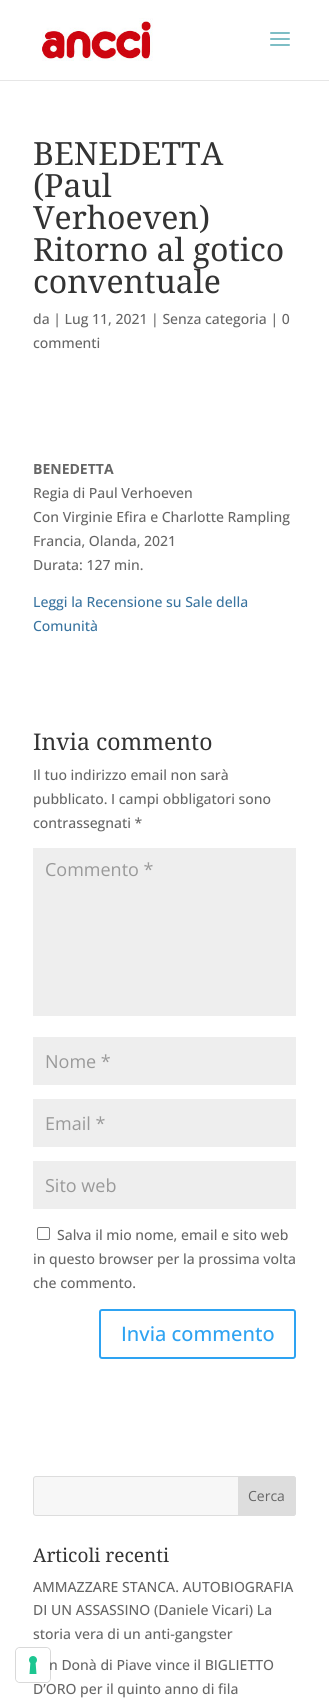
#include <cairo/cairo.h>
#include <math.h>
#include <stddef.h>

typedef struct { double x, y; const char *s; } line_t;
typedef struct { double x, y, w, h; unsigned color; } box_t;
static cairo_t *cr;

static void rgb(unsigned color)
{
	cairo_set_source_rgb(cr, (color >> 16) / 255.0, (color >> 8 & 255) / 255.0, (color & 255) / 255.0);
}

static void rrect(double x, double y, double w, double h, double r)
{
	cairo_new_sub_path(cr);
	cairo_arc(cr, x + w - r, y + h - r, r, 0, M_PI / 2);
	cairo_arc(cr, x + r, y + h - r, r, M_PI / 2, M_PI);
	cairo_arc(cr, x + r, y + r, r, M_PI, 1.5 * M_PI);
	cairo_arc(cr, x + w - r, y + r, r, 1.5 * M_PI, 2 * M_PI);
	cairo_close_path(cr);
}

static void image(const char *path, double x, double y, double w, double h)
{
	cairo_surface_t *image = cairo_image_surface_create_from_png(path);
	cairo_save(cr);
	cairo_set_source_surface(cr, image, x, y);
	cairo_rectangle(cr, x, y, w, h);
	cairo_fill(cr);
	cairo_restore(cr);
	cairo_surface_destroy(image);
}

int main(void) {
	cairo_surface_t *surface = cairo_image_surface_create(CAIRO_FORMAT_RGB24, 329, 1698);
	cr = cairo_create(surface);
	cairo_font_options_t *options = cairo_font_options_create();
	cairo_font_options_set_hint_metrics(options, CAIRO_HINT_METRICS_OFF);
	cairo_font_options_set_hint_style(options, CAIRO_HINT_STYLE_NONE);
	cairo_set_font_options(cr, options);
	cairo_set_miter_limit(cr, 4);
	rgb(0xffffff);
	cairo_paint(cr);
	rgb(0xe6e6e6);
	cairo_rectangle(cr, 0, 80, 329, 1);
	cairo_fill(cr);
	image("img/1.png", 42, 18, 111, 43);
	image("img/2.png", 270, 32, 20, 14);
	{
		static const box_t items[] = {
			{33, 848, 263, 168, 0xeeeeee},
			{33, 1037, 263, 48, 0xeeeeee},
			{33, 1099, 263, 48, 0xeeeeee},
			{33, 1161, 263, 48, 0xeeeeee},
		};
		for (size_t i = 0; i < sizeof items / sizeof *items; i++) {
			rgb(items[i].color);
			cairo_rectangle(cr, items[i].x, items[i].y, items[i].w, items[i].h);
			cairo_fill(cr);
		}
	}
	rrect(37.5, 1227.5, 12, 12, 1.5);
	rgb(0x767676);
	cairo_set_line_width(cr, 1);
	cairo_stroke(cr);
	rrect(100, 1310, 195, 48, 2);
	rgb(0x2ea3f2);
	cairo_set_line_width(cr, 2);
	cairo_stroke(cr);
	rgb(0xf7f7f7);
	rrect(33.5, 1476.5, 262, 39, 2.5);
	cairo_fill_preserve(cr);
	rgb(0xdddddd);
	cairo_set_line_width(cr, 1);
	cairo_stroke(cr);
	cairo_new_path(cr);
	cairo_move_to(cr, 238.5, 1476.5);
	cairo_line_to(cr, 293, 1476.5);
	cairo_curve_to(cr, 294.5, 1476.5, 295.5, 1477.5, 295.5, 1479);
	cairo_line_to(cr, 295.5, 1513);
	cairo_curve_to(cr, 295.5, 1514.5, 294.5, 1515.5, 293, 1515.5);
	cairo_line_to(cr, 238.5, 1515.5);
	cairo_close_path(cr);
	cairo_fill_preserve(cr);
	cairo_stroke(cr);
	cairo_select_font_face(cr, "Noto Serif", CAIRO_FONT_SLANT_NORMAL, CAIRO_FONT_WEIGHT_NORMAL);
	cairo_set_font_size(cr, 32);
	rgb(0x333333);
	{
		static const line_t items[] = {
			{33, 165, "BENEDETTA"},
			{33, 197, "(Paul"},
			{33, 229, "Verhoeven)"},
			{33, 261, "Ritorno al gotico"},
			{33, 293, "conventuale"},
		};
		for (size_t i = 0; i < sizeof items / sizeof *items; i++) {
			cairo_move_to(cr, items[i].x, items[i].y);
			cairo_show_text(cr, items[i].s);
		}
	}
	cairo_select_font_face(cr, "Open Sans Medium", CAIRO_FONT_SLANT_NORMAL, CAIRO_FONT_WEIGHT_NORMAL);
	cairo_set_font_size(cr, 14);
	rgb(0x666666);
	cairo_move_to(cr, 33, 324);
	cairo_show_text(cr, "da | Lug 11, 2021 | Senza categoria | 0");
	cairo_move_to(cr, 33, 348);
	cairo_show_text(cr, "commenti");
	cairo_select_font_face(cr, "Open Sans", CAIRO_FONT_SLANT_NORMAL, CAIRO_FONT_WEIGHT_BOLD);
	cairo_move_to(cr, 33, 474);
	cairo_show_text(cr, "BENEDETTA");
	cairo_select_font_face(cr, "Open Sans Medium", CAIRO_FONT_SLANT_NORMAL, CAIRO_FONT_WEIGHT_NORMAL);
	{
		static const line_t items[] = {
			{33, 498, "Regia di Paul Verhoeven"},
			{33, 522, "Con Virginie Efira e Charlotte Rampling"},
			{33, 546, "Francia, Olanda, 2021"},
			{33, 570, "Durata: 127 min."},
		};
		for (size_t i = 0; i < sizeof items / sizeof *items; i++) {
			cairo_move_to(cr, items[i].x, items[i].y);
			cairo_show_text(cr, items[i].s);
		}
	}
	rgb(0x3974a0);
	cairo_move_to(cr, 33, 607);
	cairo_show_text(cr, "Leggi la Recensione su Sale della");
	cairo_move_to(cr, 33, 631);
	cairo_show_text(cr, "Comunità");
	cairo_select_font_face(cr, "Noto Serif", CAIRO_FONT_SLANT_NORMAL, CAIRO_FONT_WEIGHT_NORMAL);
	cairo_set_font_size(cr, 23);
	rgb(0x333333);
	cairo_move_to(cr, 33, 750);
	cairo_show_text(cr, "Invia commento");
	cairo_select_font_face(cr, "Open Sans Medium", CAIRO_FONT_SLANT_NORMAL, CAIRO_FONT_WEIGHT_NORMAL);
	cairo_set_font_size(cr, 14);
	rgb(0x666666);
	{
		static const line_t items[] = {
			{33, 780, "Il tuo indirizzo email non sarà"},
			{33, 804, "pubblicato. I campi obbligatori sono"},
			{33, 828, "contrassegnati *"},
		};
		for (size_t i = 0; i < sizeof items / sizeof *items; i++) {
			cairo_move_to(cr, items[i].x, items[i].y);
			cairo_show_text(cr, items[i].s);
		}
	}
	cairo_select_font_face(cr, "Open Sans", CAIRO_FONT_SLANT_NORMAL, CAIRO_FONT_WEIGHT_NORMAL);
	cairo_set_font_size(cr, 18);
	rgb(0x999999);
	{
		static const line_t items[] = {
			{45, 876, "Commento *"},
			{45, 1068, "Nome *"},
			{45, 1130, "Email *"},
			{45, 1192, "Sito web"},
		};
		for (size_t i = 0; i < sizeof items / sizeof *items; i++) {
			cairo_move_to(cr, items[i].x, items[i].y);
			cairo_show_text(cr, items[i].s);
		}
	}
	cairo_select_font_face(cr, "Open Sans Medium", CAIRO_FONT_SLANT_NORMAL, CAIRO_FONT_WEIGHT_NORMAL);
	cairo_set_font_size(cr, 14);
	rgb(0x666666);
	{
		static const line_t items[] = {
			{57, 1240, "Salva il mio nome, email e sito web"},
			{33, 1264, "in questo browser per la prossima volta"},
			{33, 1288, "che commento."},
		};
		for (size_t i = 0; i < sizeof items / sizeof *items; i++) {
			cairo_move_to(cr, items[i].x, items[i].y);
			cairo_show_text(cr, items[i].s);
		}
	}
	cairo_set_font_size(cr, 20);
	rgb(0x2ea3f2);
	cairo_move_to(cr, 121, 1341);
	cairo_show_text(cr, "Invia commento");
	cairo_select_font_face(cr, "Open Sans", CAIRO_FONT_SLANT_NORMAL, CAIRO_FONT_WEIGHT_NORMAL);
	cairo_set_font_size(cr, 14);
	rgb(0x666666);
	cairo_move_to(cr, 248, 1501);
	cairo_show_text(cr, "Cerca");
	cairo_select_font_face(cr, "Noto Serif", CAIRO_FONT_SLANT_NORMAL, CAIRO_FONT_WEIGHT_NORMAL);
	cairo_set_font_size(cr, 19);
	rgb(0x333333);
	cairo_move_to(cr, 33, 1562);
	cairo_show_text(cr, "Articoli recenti");
	cairo_select_font_face(cr, "Open Sans Medium", CAIRO_FONT_SLANT_NORMAL, CAIRO_FONT_WEIGHT_NORMAL);
	cairo_set_font_size(cr, 14);
	rgb(0x666666);
	{
		static const line_t items[] = {
			{33, 1592, "AMMAZZARE STANCA. AUTOBIOGRAFIA"},
			{33, 1615, "DI UN ASSASSINO (Daniele Vicari) La"},
			{33, 1639, "storia vera di un anti-gangster"},
			{49, 1670, "n Donà di Piave vince il BIGLIETTO"},
			{33, 1694, "D’ORO per il quinto anno di fila"},
		};
		for (size_t i = 0; i < sizeof items / sizeof *items; i++) {
			cairo_move_to(cr, items[i].x, items[i].y);
			cairo_show_text(cr, items[i].s);
		}
	}
	rrect(15.5, 1647.5, 35, 35, 4.5);
	cairo_set_source_rgba(cr, 0, 0, 0, 0.15);
	cairo_stroke(cr);
	rgb(0xffffff);
	rrect(16, 1648, 34, 34, 4);
	cairo_fill(cr);
	image("img/3.png", 29, 1656, 8, 18);
	cairo_surface_write_to_png(surface, "page.png");
	cairo_font_options_destroy(options);
	cairo_destroy(cr);
	cairo_surface_destroy(surface);
	return 0;
}
